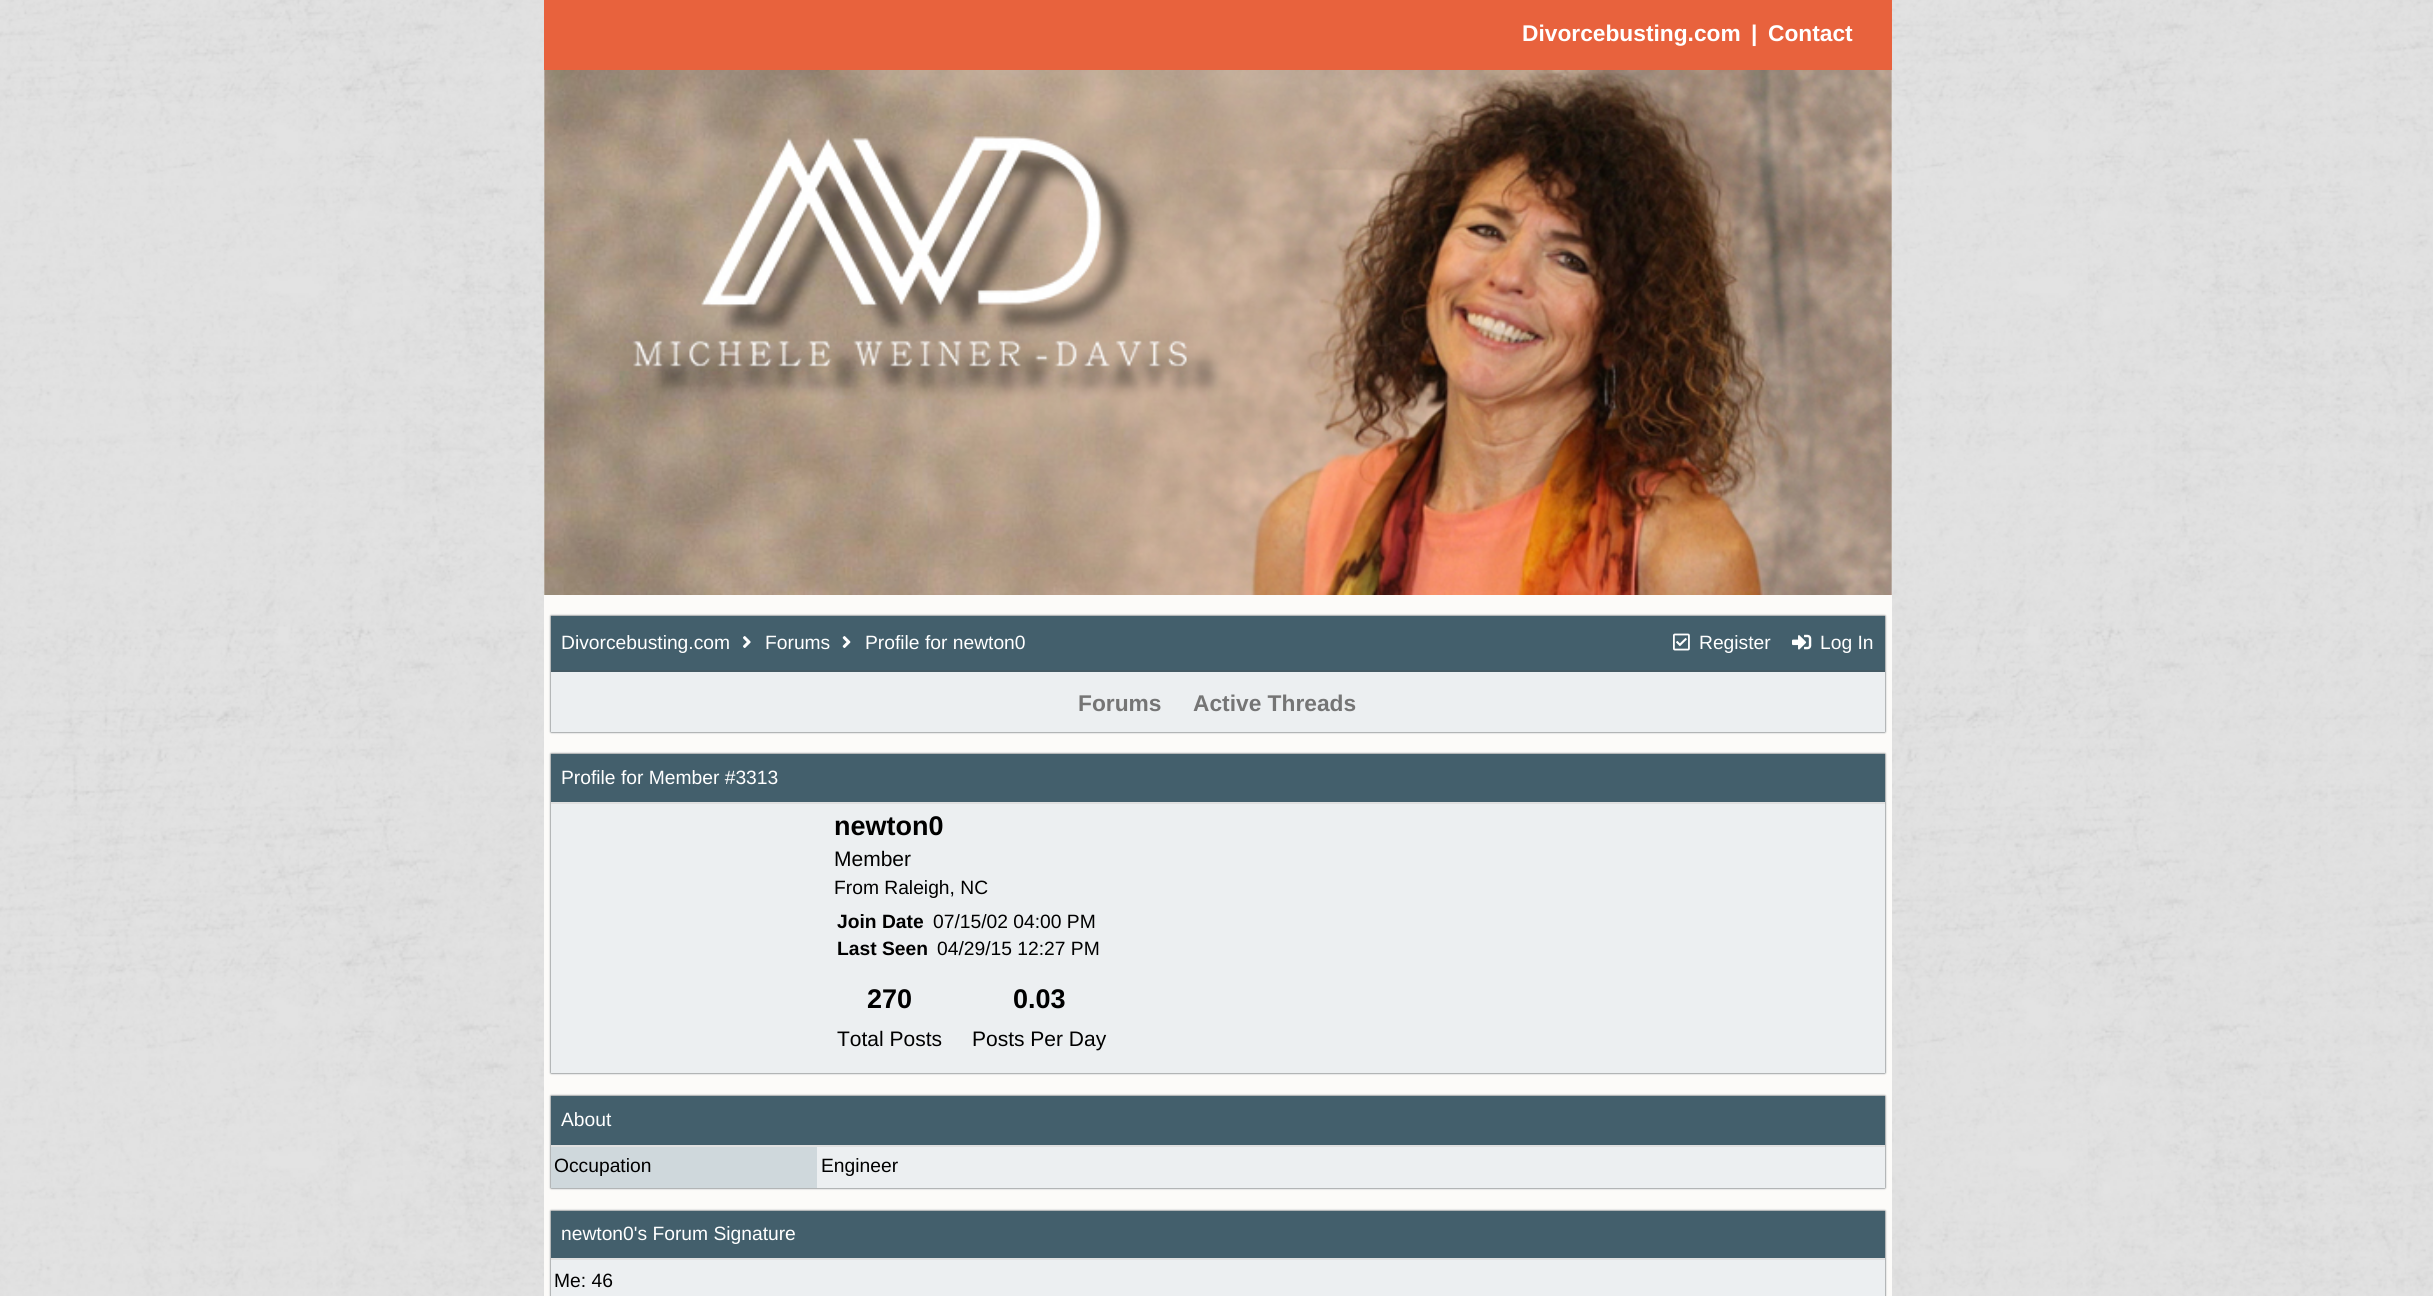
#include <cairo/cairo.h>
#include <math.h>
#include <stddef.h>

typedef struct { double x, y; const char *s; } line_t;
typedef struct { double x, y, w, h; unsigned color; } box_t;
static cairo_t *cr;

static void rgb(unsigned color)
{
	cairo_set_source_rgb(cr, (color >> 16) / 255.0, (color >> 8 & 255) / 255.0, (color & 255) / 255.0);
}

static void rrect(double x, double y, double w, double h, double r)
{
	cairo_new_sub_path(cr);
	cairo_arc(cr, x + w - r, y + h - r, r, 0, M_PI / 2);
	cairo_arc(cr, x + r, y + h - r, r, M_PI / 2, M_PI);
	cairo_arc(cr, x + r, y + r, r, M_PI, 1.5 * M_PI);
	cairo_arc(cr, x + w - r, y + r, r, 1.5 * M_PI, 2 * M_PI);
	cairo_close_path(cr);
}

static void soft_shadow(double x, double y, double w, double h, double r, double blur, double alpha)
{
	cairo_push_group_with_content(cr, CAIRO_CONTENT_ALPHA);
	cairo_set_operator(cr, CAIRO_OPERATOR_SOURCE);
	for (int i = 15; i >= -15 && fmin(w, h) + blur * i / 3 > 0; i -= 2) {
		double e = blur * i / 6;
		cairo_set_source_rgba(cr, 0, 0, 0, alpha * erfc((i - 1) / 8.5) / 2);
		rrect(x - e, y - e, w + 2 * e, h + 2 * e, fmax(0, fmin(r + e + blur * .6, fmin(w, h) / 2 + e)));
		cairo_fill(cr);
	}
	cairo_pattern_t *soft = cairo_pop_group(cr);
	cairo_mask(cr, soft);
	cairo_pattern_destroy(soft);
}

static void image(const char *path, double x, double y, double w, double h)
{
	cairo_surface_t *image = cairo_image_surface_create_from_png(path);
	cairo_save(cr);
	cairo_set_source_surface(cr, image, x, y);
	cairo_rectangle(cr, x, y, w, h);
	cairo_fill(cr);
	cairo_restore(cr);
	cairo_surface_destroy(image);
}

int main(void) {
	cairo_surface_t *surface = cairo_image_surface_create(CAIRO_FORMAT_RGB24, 2433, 1296);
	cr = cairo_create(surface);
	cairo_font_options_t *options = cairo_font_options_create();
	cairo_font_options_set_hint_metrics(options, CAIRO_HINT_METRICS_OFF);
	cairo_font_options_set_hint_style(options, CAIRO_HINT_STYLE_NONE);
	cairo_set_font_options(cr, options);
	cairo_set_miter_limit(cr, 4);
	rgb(0xffffff);
	cairo_paint(cr);
	image("img/1.png", 0, 0, 2433, 1296);
	rgb(0xfcfbf9);
	cairo_rectangle(cr, 544, 70, 1348, 1226);
	cairo_fill(cr);
	rgb(0xe8623d);
	cairo_rectangle(cr, 544, 0, 1348, 70);
	cairo_fill(cr);
	image("img/2.png", 544, 70, 1348, 525);
	rgb(0x263238);
	soft_shadow(551, 616, 1334, 116, 0, 1, 1);
	rgb(0x435f6c);
	cairo_rectangle(cr, 551, 616, 1334, 54);
	cairo_fill(cr);
	image("img/3.png", 743, 636, 8, 12);
	image("img/4.png", 842, 636, 9, 12);
	image("img/5.png", 1673, 633, 17, 18);
	image("img/6.png", 1792, 634, 20, 16);
	rgb(0xeceff1);
	cairo_rectangle(cr, 551, 672, 1334, 60);
	cairo_fill(cr);
	rgb(0x455a64);
	cairo_rectangle(cr, 551, 670, 1334, 2);
	cairo_fill(cr);
	rgb(0x263238);
	soft_shadow(551, 754, 1334, 319, 0, 1, 1);
	{
		static const box_t items[] = {
			{551, 754, 1334, 48, 0x435f6c},
			{551, 804, 1334, 269, 0xeceff1},
			{551, 802, 1334, 2, 0xe0e0e0},
		};
		for (size_t i = 0; i < sizeof items / sizeof *items; i++) {
			rgb(items[i].color);
			cairo_rectangle(cr, items[i].x, items[i].y, items[i].w, items[i].h);
			cairo_fill(cr);
		}
	}
	rgb(0x263238);
	soft_shadow(551, 1096, 1334, 92, 0, 1, 1);
	{
		static const box_t items[] = {
			{551, 1096, 1334, 49, 0x435f6c},
			{551, 1147, 266, 41, 0xcfd8dc},
			{551, 1145, 1334, 2, 0xe0e0e0},
			{817, 1147, 1068, 41, 0xeceff1},
		};
		for (size_t i = 0; i < sizeof items / sizeof *items; i++) {
			rgb(items[i].color);
			cairo_rectangle(cr, items[i].x, items[i].y, items[i].w, items[i].h);
			cairo_fill(cr);
		}
	}
	rgb(0x263238);
	soft_shadow(551, 1211, 1334, 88, 0, 1, 1);
	{
		static const box_t items[] = {
			{551, 1211, 1334, 47, 0x435f6c},
			{551, 1260, 1334, 36, 0xeceff1},
			{551, 1258, 1334, 2, 0xe0e0e0},
		};
		for (size_t i = 0; i < sizeof items / sizeof *items; i++) {
			rgb(items[i].color);
			cairo_rectangle(cr, items[i].x, items[i].y, items[i].w, items[i].h);
			cairo_fill(cr);
		}
	}
	cairo_select_font_face(cr, "Liberation Sans", CAIRO_FONT_SLANT_NORMAL, CAIRO_FONT_WEIGHT_BOLD);
	cairo_set_font_size(cr, 22.75);
	rgb(0xffffff);
	{
		static const line_t items[] = {
			{1522, 41, "Divorcebusting.com"},
			{1751, 41, "|"},
			{1768, 41, "Contact"},
		};
		for (size_t i = 0; i < sizeof items / sizeof *items; i++) {
			cairo_move_to(cr, items[i].x, items[i].y);
			cairo_show_text(cr, items[i].s);
		}
	}
	cairo_select_font_face(cr, "Liberation Sans", CAIRO_FONT_SLANT_NORMAL, CAIRO_FONT_WEIGHT_NORMAL);
	cairo_set_font_size(cr, 19.25);
	{
		static const line_t items[] = {
			{561, 649, "Divorcebusting.com"},
			{765, 649, "Forums"},
			{865, 649, "Profile for newton0"},
			{1699, 649, "Register"},
			{1820, 649, "Log In"},
		};
		for (size_t i = 0; i < sizeof items / sizeof *items; i++) {
			cairo_move_to(cr, items[i].x, items[i].y);
			cairo_show_text(cr, items[i].s);
		}
	}
	cairo_select_font_face(cr, "Liberation Sans", CAIRO_FONT_SLANT_NORMAL, CAIRO_FONT_WEIGHT_BOLD);
	cairo_set_font_size(cr, 22.75);
	rgb(0x757575);
	cairo_move_to(cr, 1078, 711);
	cairo_show_text(cr, "Forums");
	cairo_move_to(cr, 1193, 711);
	cairo_show_text(cr, "Active Threads");
	cairo_select_font_face(cr, "Liberation Sans", CAIRO_FONT_SLANT_NORMAL, CAIRO_FONT_WEIGHT_NORMAL);
	cairo_set_font_size(cr, 19.25);
	rgb(0xffffff);
	cairo_move_to(cr, 561, 784);
	cairo_show_text(cr, "Profile for Member #3313");
	cairo_select_font_face(cr, "Liberation Sans", CAIRO_FONT_SLANT_NORMAL, CAIRO_FONT_WEIGHT_BOLD);
	cairo_set_font_size(cr, 27);
	rgb(0x000000);
	cairo_move_to(cr, 834, 835);
	cairo_show_text(cr, "newton0");
	cairo_select_font_face(cr, "Liberation Sans", CAIRO_FONT_SLANT_NORMAL, CAIRO_FONT_WEIGHT_NORMAL);
	cairo_set_font_size(cr, 21);
	cairo_move_to(cr, 834, 866);
	cairo_show_text(cr, "Member");
	cairo_set_font_size(cr, 19.25);
	cairo_move_to(cr, 834, 894);
	cairo_show_text(cr, "From Raleigh, NC");
	cairo_select_font_face(cr, "Liberation Sans", CAIRO_FONT_SLANT_NORMAL, CAIRO_FONT_WEIGHT_BOLD);
	cairo_move_to(cr, 837, 928);
	cairo_show_text(cr, "Join Date");
	cairo_select_font_face(cr, "Liberation Sans", CAIRO_FONT_SLANT_NORMAL, CAIRO_FONT_WEIGHT_NORMAL);
	cairo_move_to(cr, 933, 928);
	cairo_show_text(cr, "07/15/02 04:00 PM");
	cairo_select_font_face(cr, "Liberation Sans", CAIRO_FONT_SLANT_NORMAL, CAIRO_FONT_WEIGHT_BOLD);
	cairo_move_to(cr, 837, 955);
	cairo_show_text(cr, "Last Seen");
	cairo_select_font_face(cr, "Liberation Sans", CAIRO_FONT_SLANT_NORMAL, CAIRO_FONT_WEIGHT_NORMAL);
	cairo_move_to(cr, 937, 955);
	cairo_show_text(cr, "04/29/15 12:27 PM");
	cairo_select_font_face(cr, "Liberation Sans", CAIRO_FONT_SLANT_NORMAL, CAIRO_FONT_WEIGHT_BOLD);
	cairo_set_font_size(cr, 27);
	cairo_move_to(cr, 867, 1008);
	cairo_show_text(cr, "270");
	cairo_select_font_face(cr, "Liberation Sans", CAIRO_FONT_SLANT_NORMAL, CAIRO_FONT_WEIGHT_NORMAL);
	cairo_set_font_size(cr, 21);
	cairo_move_to(cr, 837, 1046);
	cairo_show_text(cr, "Total Posts");
	cairo_select_font_face(cr, "Liberation Sans", CAIRO_FONT_SLANT_NORMAL, CAIRO_FONT_WEIGHT_BOLD);
	cairo_set_font_size(cr, 27);
	cairo_move_to(cr, 1013, 1008);
	cairo_show_text(cr, "0.03");
	cairo_select_font_face(cr, "Liberation Sans", CAIRO_FONT_SLANT_NORMAL, CAIRO_FONT_WEIGHT_NORMAL);
	cairo_set_font_size(cr, 21);
	cairo_move_to(cr, 972, 1046);
	cairo_show_text(cr, "Posts Per Day");
	cairo_set_font_size(cr, 19.25);
	rgb(0xffffff);
	cairo_move_to(cr, 561, 1126);
	cairo_show_text(cr, "About");
	rgb(0x000000);
	cairo_move_to(cr, 554, 1172);
	cairo_show_text(cr, "Occupation");
	cairo_move_to(cr, 821, 1172);
	cairo_show_text(cr, "Engineer");
	rgb(0xffffff);
	cairo_move_to(cr, 561, 1240);
	cairo_show_text(cr, "newton0's Forum Signature");
	rgb(0x000000);
	cairo_move_to(cr, 554, 1287);
	cairo_show_text(cr, "Me: 46");
	cairo_surface_write_to_png(surface, "page.png");
	cairo_font_options_destroy(options);
	cairo_destroy(cr);
	cairo_surface_destroy(surface);
	return 0;
}
